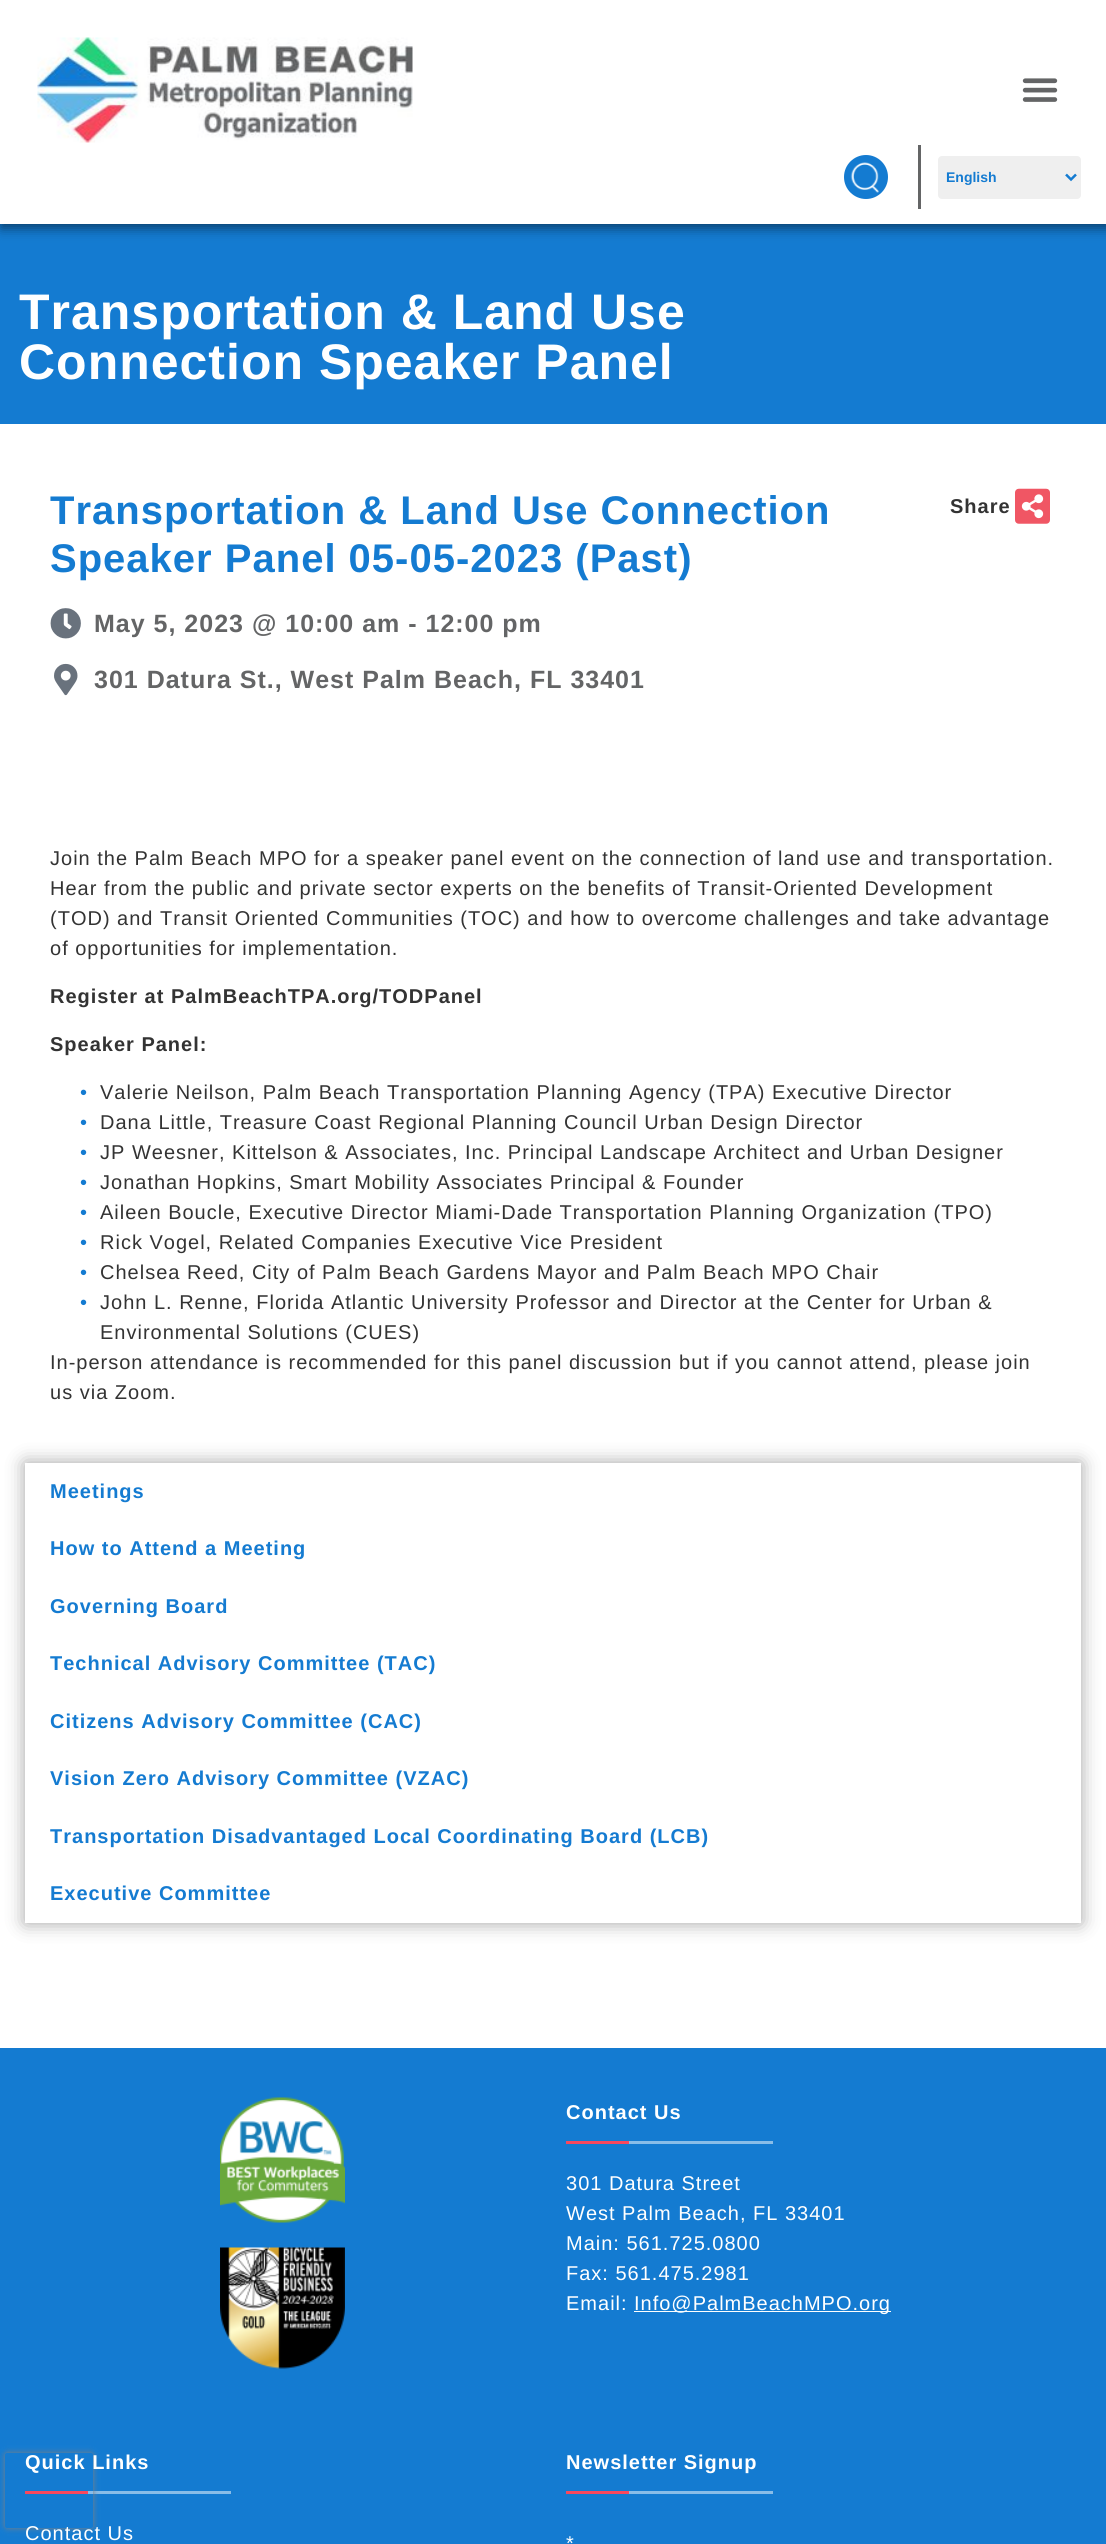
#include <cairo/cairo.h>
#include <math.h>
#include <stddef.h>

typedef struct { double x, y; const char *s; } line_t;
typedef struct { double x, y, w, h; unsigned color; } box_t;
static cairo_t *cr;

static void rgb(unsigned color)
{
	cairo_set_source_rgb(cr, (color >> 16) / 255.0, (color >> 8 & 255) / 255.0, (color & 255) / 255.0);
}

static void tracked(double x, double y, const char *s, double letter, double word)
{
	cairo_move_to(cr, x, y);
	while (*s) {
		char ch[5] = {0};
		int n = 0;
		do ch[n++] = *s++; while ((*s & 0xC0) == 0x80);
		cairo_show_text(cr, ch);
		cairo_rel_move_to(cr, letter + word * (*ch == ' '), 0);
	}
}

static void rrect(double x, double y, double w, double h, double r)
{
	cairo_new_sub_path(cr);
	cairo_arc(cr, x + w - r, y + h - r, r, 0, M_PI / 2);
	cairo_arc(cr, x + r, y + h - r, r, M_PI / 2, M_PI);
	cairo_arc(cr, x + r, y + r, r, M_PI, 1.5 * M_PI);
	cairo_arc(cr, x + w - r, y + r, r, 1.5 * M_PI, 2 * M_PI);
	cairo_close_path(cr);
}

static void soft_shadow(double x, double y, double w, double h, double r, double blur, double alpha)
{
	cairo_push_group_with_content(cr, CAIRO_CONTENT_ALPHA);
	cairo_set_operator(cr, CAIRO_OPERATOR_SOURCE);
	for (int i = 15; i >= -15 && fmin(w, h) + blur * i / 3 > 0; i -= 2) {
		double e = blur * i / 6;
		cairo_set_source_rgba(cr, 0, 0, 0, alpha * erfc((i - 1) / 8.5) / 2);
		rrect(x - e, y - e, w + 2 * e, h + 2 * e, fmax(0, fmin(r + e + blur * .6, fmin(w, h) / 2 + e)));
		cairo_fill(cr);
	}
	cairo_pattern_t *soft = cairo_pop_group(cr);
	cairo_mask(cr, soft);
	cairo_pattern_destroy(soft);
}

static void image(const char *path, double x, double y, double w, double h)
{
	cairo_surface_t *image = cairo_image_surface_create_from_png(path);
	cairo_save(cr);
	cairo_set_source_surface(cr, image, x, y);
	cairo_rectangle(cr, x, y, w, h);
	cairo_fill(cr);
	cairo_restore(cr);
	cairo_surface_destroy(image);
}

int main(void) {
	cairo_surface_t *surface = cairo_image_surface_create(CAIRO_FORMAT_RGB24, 1106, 2544);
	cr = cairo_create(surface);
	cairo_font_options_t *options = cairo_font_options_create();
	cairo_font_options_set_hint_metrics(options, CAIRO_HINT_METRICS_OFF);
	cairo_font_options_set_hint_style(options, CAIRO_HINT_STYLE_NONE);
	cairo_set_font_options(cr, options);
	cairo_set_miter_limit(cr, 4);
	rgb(0xffffff);
	cairo_paint(cr);
	rgb(0x147bd1);
	cairo_rectangle(cr, 0, 224, 1106, 200);
	cairo_fill(cr);
	rgb(0x000000);
	soft_shadow(1, 4, 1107, 224, 0, 6, 0.5);
	rgb(0xffffff);
	cairo_rectangle(cr, 0, 0, 1106, 224);
	cairo_fill(cr);
	image("img/1.png", 37, 37, 376, 106);
	image("img/2.png", 1022, 78, 36, 24);
	rgb(0x147bd1);
	cairo_arc(cr, 866, 177, 22, 0, 2 * M_PI);
	cairo_fill(cr);
	image("img/3.png", 850, 162, 29, 31);
	rgb(0x646566);
	cairo_rectangle(cr, 918, 145, 3, 64);
	cairo_fill(cr);
	rgb(0xefefef);
	rrect(938, 156, 143, 43, 4);
	cairo_fill(cr);
	cairo_new_path(cr);
	cairo_move_to(cr, 1066, 174.5);
	cairo_line_to(cr, 1071, 179.5);
	cairo_line_to(cr, 1076, 174.5);
	rgb(0x147bd1);
	cairo_set_line_width(cr, 2.5);
	cairo_stroke(cr);
	image("img/4.png", 1015, 488, 35, 36);
	image("img/5.png", 50, 608, 31, 31);
	image("img/6.png", 54, 663, 24, 33);
	cairo_save(cr);
	cairo_set_fill_rule(cr, CAIRO_FILL_RULE_EVEN_ODD);
	cairo_new_path(cr);
	cairo_move_to(cr, 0, 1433);
	cairo_line_to(cr, 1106, 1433);
	cairo_line_to(cr, 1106, 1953);
	cairo_line_to(cr, 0, 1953);
	cairo_close_path(cr);
	cairo_move_to(cr, 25, 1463);
	cairo_line_to(cr, 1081, 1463);
	cairo_line_to(cr, 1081, 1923);
	cairo_line_to(cr, 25, 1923);
	cairo_close_path(cr);
	cairo_clip(cr);
	rgb(0x000000);
	soft_shadow(25, 1463, 1056, 460, 0, 9.5, 0.36);
	cairo_restore(cr);
	cairo_rectangle(cr, 0, 2048, 1106, 496);
	cairo_fill(cr);
	image("img/7.png", 220, 2097, 125, 126);
	image("img/8.png", 220, 2247, 125, 122);
	{
		static const box_t items[] = {
			{629, 2141, 144, 3, 0x89bde8},
			{566, 2141, 63, 3, 0xf8485e},
			{634, 2311, 257, 1, 0xffffff},
			{88, 2491, 143, 3, 0x89bde8},
			{25, 2491, 63, 3, 0xf8485e},
			{629, 2491, 144, 3, 0x89bde8},
			{566, 2491, 63, 3, 0xf8485e},
		};
		for (size_t i = 0; i < sizeof items / sizeof *items; i++) {
			rgb(items[i].color);
			cairo_rectangle(cr, items[i].x, items[i].y, items[i].w, items[i].h);
			cairo_fill(cr);
		}
	}
	cairo_save(cr);
	cairo_set_fill_rule(cr, CAIRO_FILL_RULE_EVEN_ODD);
	cairo_new_path(cr);
	cairo_move_to(cr, 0, 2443);
	cairo_line_to(cr, 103, 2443);
	cairo_line_to(cr, 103, 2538);
	cairo_line_to(cr, 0, 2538);
	cairo_close_path(cr);
	cairo_move_to(cr, 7.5, 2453);
	cairo_line_to(cr, 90.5, 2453);
	cairo_curve_to(cr, 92, 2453, 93, 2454, 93, 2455.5);
	cairo_line_to(cr, 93, 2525.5);
	cairo_curve_to(cr, 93, 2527, 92, 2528, 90.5, 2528);
	cairo_line_to(cr, 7.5, 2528);
	cairo_curve_to(cr, 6, 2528, 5, 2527, 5, 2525.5);
	cairo_line_to(cr, 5, 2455.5);
	cairo_curve_to(cr, 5, 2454, 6, 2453, 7.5, 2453);
	cairo_close_path(cr);
	cairo_clip(cr);
	rgb(0x808080);
	soft_shadow(5, 2453, 88, 75, 2.5, 3, 1);
	cairo_restore(cr);
	cairo_select_font_face(cr, "Liberation Sans", CAIRO_FONT_SLANT_NORMAL, CAIRO_FONT_WEIGHT_BOLD);
	cairo_set_font_size(cr, 14);
	rgb(0x147bd1);
	cairo_move_to(cr, 946, 182);
	cairo_show_text(cr, "English");
	cairo_set_font_size(cr, 50);
	rgb(0xffffff);
	tracked(19, 329, "Transportation & Land Use", 1, 0);
	tracked(19, 379, "Connection Speaker Panel", 1, 0);
	cairo_set_font_size(cr, 40);
	rgb(0x147bd1);
	tracked(50, 524, "Transportation & Land Use Connection", 1, 0);
	tracked(50, 572, "Speaker Panel 05-05-2023 (Past)", 1, 0);
	cairo_set_font_size(cr, 20);
	rgb(0x333333);
	tracked(950, 513, "Share", 1, 0);
	cairo_set_font_size(cr, 25);
	rgb(0x646566);
	tracked(94, 632, "May 5, 2023 @ 10:00 am - 12:00 pm", 1, 0);
	tracked(94, 688, "301 Datura St., West Palm Beach, FL 33401", 1, 0);
	cairo_select_font_face(cr, "Liberation Sans", CAIRO_FONT_SLANT_NORMAL, CAIRO_FONT_WEIGHT_NORMAL);
	cairo_set_font_size(cr, 20);
	rgb(0x333333);
	{
		static const line_t items[] = {
			{50, 865, "Join the Palm Beach MPO for a speaker panel event on the connection of land use and transportation."},
			{50, 895, "Hear from the public and private sector experts on the benefits of Transit-Oriented Development"},
			{50, 925, "(TOD) and Transit Oriented Communities (TOC) and how to overcome challenges and take advantage"},
			{50, 955, "of opportunities for implementation."},
		};
		for (size_t i = 0; i < sizeof items / sizeof *items; i++) {
			tracked(items[i].x, items[i].y, items[i].s, 1, 0);
		}
	}
	cairo_select_font_face(cr, "Liberation Sans", CAIRO_FONT_SLANT_NORMAL, CAIRO_FONT_WEIGHT_BOLD);
	tracked(50, 1003, "Register at PalmBeachTPA.org/TODPanel", 1, 0);
	tracked(50, 1051, "Speaker Panel:", 1, 0);
	cairo_select_font_face(cr, "Liberation Sans", CAIRO_FONT_SLANT_NORMAL, CAIRO_FONT_WEIGHT_NORMAL);
	rgb(0x147bd1);
	tracked(80, 1099, "•", 1, 0);
	rgb(0x333333);
	tracked(100, 1099, "Valerie Neilson, Palm Beach Transportation Planning Agency (TPA) Executive Director", 1, 0);
	rgb(0x147bd1);
	tracked(80, 1129, "•", 1, 0);
	rgb(0x333333);
	tracked(100, 1129, "Dana Little, Treasure Coast Regional Planning Council Urban Design Director", 1, 0);
	rgb(0x147bd1);
	tracked(80, 1159, "•", 1, 0);
	rgb(0x333333);
	tracked(100, 1159, "JP Weesner, Kittelson & Associates, Inc. Principal Landscape Architect and Urban Designer", 1, 0);
	rgb(0x147bd1);
	tracked(80, 1189, "•", 1, 0);
	rgb(0x333333);
	tracked(100, 1189, "Jonathan Hopkins, Smart Mobility Associates Principal & Founder", 1, 0);
	rgb(0x147bd1);
	tracked(80, 1219, "•", 1, 0);
	rgb(0x333333);
	tracked(100, 1219, "Aileen Boucle, Executive Director Miami-Dade Transportation Planning Organization (TPO)", 1, 0);
	rgb(0x147bd1);
	tracked(80, 1249, "•", 1, 0);
	rgb(0x333333);
	tracked(100, 1249, "Rick Vogel, Related Companies Executive Vice President", 1, 0);
	rgb(0x147bd1);
	tracked(80, 1279, "•", 1, 0);
	rgb(0x333333);
	tracked(100, 1279, "Chelsea Reed, City of Palm Beach Gardens Mayor and Palm Beach MPO Chair", 1, 0);
	rgb(0x147bd1);
	tracked(80, 1309, "•", 1, 0);
	rgb(0x333333);
	{
		static const line_t items[] = {
			{100, 1309, "John L. Renne, Florida Atlantic University Professor and Director at the Center for Urban &"},
			{100, 1339, "Environmental Solutions (CUES)"},
			{50, 1369, "In-person attendance is recommended for this panel discussion but if you cannot attend, please join"},
			{50, 1399, "us via Zoom."},
		};
		for (size_t i = 0; i < sizeof items / sizeof *items; i++) {
			tracked(items[i].x, items[i].y, items[i].s, 1, 0);
		}
	}
	cairo_select_font_face(cr, "Liberation Sans", CAIRO_FONT_SLANT_NORMAL, CAIRO_FONT_WEIGHT_BOLD);
	rgb(0x147bd1);
	{
		static const line_t items[] = {
			{50, 1498, "Meetings"},
			{50, 1555, "How to Attend a Meeting"},
			{50, 1613, "Governing Board"},
			{50, 1670, "Technical Advisory Committee (TAC)"},
			{50, 1728, "Citizens Advisory Committee (CAC)"},
			{50, 1785, "Vision Zero Advisory Committee (VZAC)"},
			{50, 1843, "Transportation Disadvantaged Local Coordinating Board (LCB)"},
			{50, 1900, "Executive Committee"},
		};
		for (size_t i = 0; i < sizeof items / sizeof *items; i++) {
			tracked(items[i].x, items[i].y, items[i].s, 1, 0);
		}
	}
	rgb(0xffffff);
	tracked(566, 2119, "Contact Us", 1, 0);
	cairo_select_font_face(cr, "Liberation Sans", CAIRO_FONT_SLANT_NORMAL, CAIRO_FONT_WEIGHT_NORMAL);
	{
		static const line_t items[] = {
			{566, 2190, "301 Datura Street"},
			{566, 2220, "West Palm Beach, FL 33401"},
			{566, 2250, "Main: 561.725.0800"},
			{566, 2280, "Fax: 561.475.2981"},
			{566, 2310, "Email:"},
			{634, 2310, "Info@PalmBeachMPO.org"},
		};
		for (size_t i = 0; i < sizeof items / sizeof *items; i++) {
			tracked(items[i].x, items[i].y, items[i].s, 1, 0);
		}
	}
	cairo_select_font_face(cr, "Liberation Sans", CAIRO_FONT_SLANT_NORMAL, CAIRO_FONT_WEIGHT_BOLD);
	tracked(25, 2469, "Quick Links", 1, 0);
	cairo_select_font_face(cr, "Liberation Sans", CAIRO_FONT_SLANT_NORMAL, CAIRO_FONT_WEIGHT_NORMAL);
	tracked(25, 2540, "Contact Us", 1, 0);
	cairo_select_font_face(cr, "Liberation Sans", CAIRO_FONT_SLANT_NORMAL, CAIRO_FONT_WEIGHT_BOLD);
	tracked(566, 2469, "Newsletter Signup", 1, 0);
	cairo_select_font_face(cr, "Liberation Sans", CAIRO_FONT_SLANT_NORMAL, CAIRO_FONT_WEIGHT_NORMAL);
	cairo_move_to(cr, 566, 2550);
	cairo_show_text(cr, "*");
	cairo_surface_write_to_png(surface, "page.png");
	cairo_font_options_destroy(options);
	cairo_destroy(cr);
	cairo_surface_destroy(surface);
	return 0;
}
